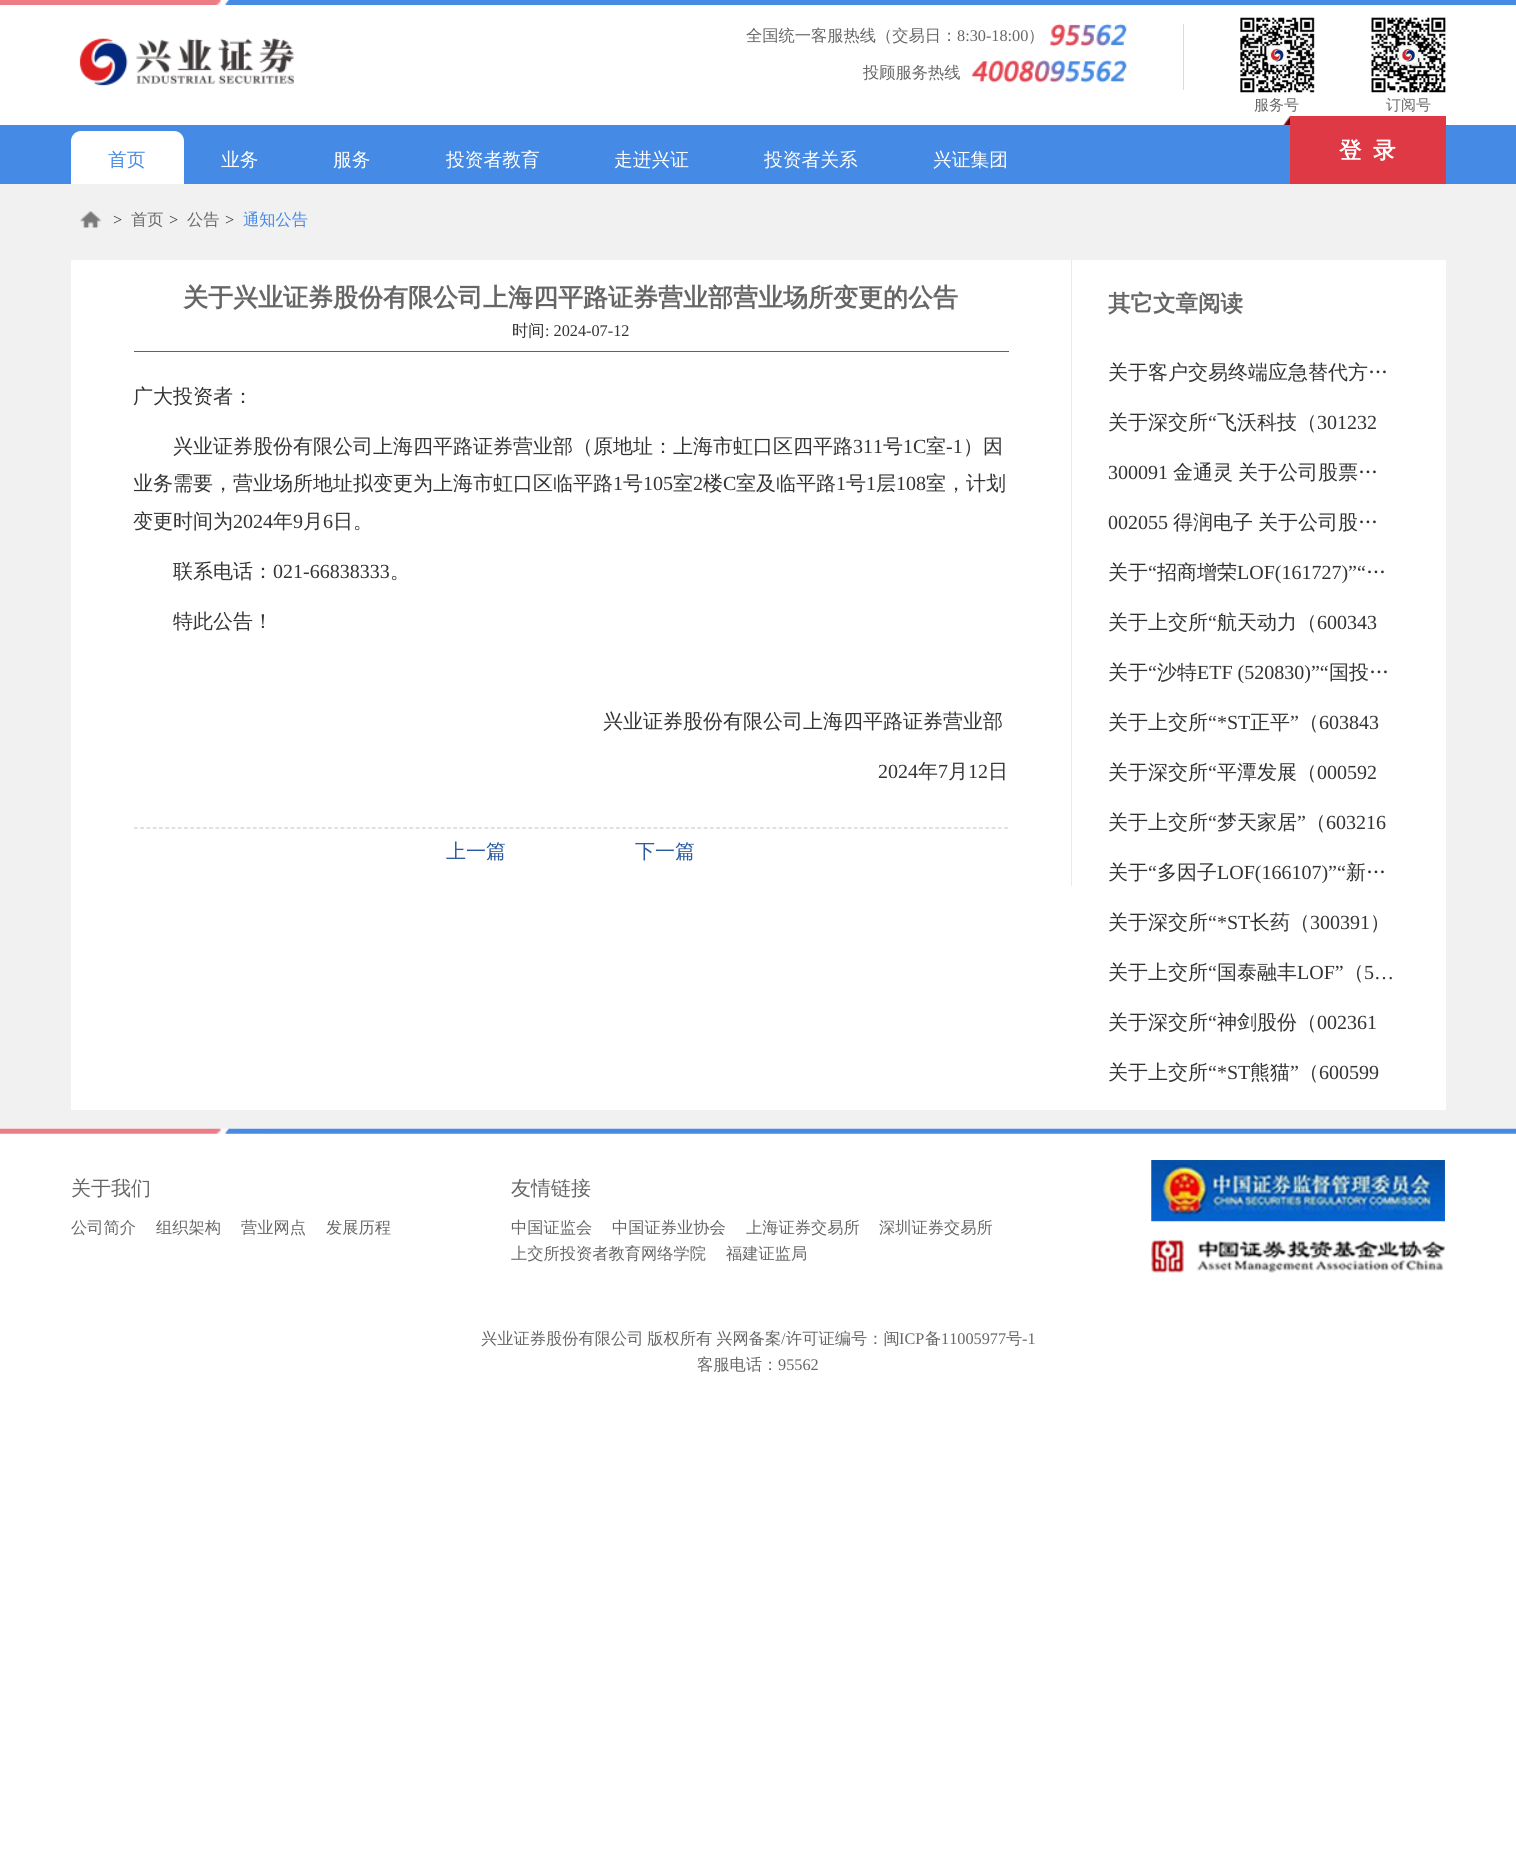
#include <cairo/cairo.h>
#include <math.h>
#include <stddef.h>

typedef struct { double x, y; const char *s; } line_t;
typedef struct { double x, y, w, h; unsigned color; } box_t;
static cairo_t *cr;

static void rgb(unsigned color)
{
	cairo_set_source_rgb(cr, (color >> 16) / 255.0, (color >> 8 & 255) / 255.0, (color & 255) / 255.0);
}

static void tracked(double x, double y, const char *s, double letter, double word)
{
	cairo_move_to(cr, x, y);
	while (*s) {
		char ch[5] = {0};
		int n = 0;
		do ch[n++] = *s++; while ((*s & 0xC0) == 0x80);
		cairo_show_text(cr, ch);
		cairo_rel_move_to(cr, letter + word * (*ch == ' '), 0);
	}
}

static void image(const char *path, double x, double y, double w, double h)
{
	cairo_surface_t *image = cairo_image_surface_create_from_png(path);
	cairo_save(cr);
	cairo_set_source_surface(cr, image, x, y);
	cairo_rectangle(cr, x, y, w, h);
	cairo_fill(cr);
	cairo_restore(cr);
	cairo_surface_destroy(image);
}

int main(void) {
	cairo_surface_t *surface = cairo_image_surface_create(CAIRO_FORMAT_RGB24, 1516, 1854);
	cr = cairo_create(surface);
	cairo_font_options_t *options = cairo_font_options_create();
	cairo_font_options_set_hint_metrics(options, CAIRO_HINT_METRICS_OFF);
	cairo_font_options_set_hint_style(options, CAIRO_HINT_STYLE_NONE);
	cairo_set_font_options(cr, options);
	cairo_set_miter_limit(cr, 4);
	rgb(0xffffff);
	cairo_paint(cr);
	image("img/1.png", 0, 0, 1516, 5);
	image("img/2.png", 79, 38, 215, 48);
	rgb(0xdadada);
	cairo_rectangle(cr, 1183, 24, 1, 66);
	cairo_fill(cr);
	image("img/3.png", 1050, 23, 77, 24);
	image("img/4.png", 971, 60, 156, 23);
	image("img/5.png", 1240, 17, 75, 76);
	image("img/6.png", 1371, 17, 75, 76);
	rgb(0x458ae5);
	cairo_rectangle(cr, 0, 125, 1516, 59);
	cairo_fill(cr);
	rgb(0xffffff);
	cairo_new_path(cr);
	cairo_move_to(cr, 81, 131);
	cairo_line_to(cr, 174, 131);
	cairo_curve_to(cr, 179.5, 131, 184, 135.5, 184, 141);
	cairo_line_to(cr, 184, 184);
	cairo_line_to(cr, 71, 184);
	cairo_line_to(cr, 71, 141);
	cairo_curve_to(cr, 71, 135.5, 75.5, 131, 81, 131);
	cairo_close_path(cr);
	cairo_fill(cr);
	rgb(0xdf3945);
	cairo_rectangle(cr, 1290, 116, 156, 68);
	cairo_fill(cr);
	image("img/7.png", 1283, 116, 7, 9);
	rgb(0xf1f1f1);
	cairo_rectangle(cr, 0, 184, 1516, 945);
	cairo_fill(cr);
	image("img/8.png", 80, 211, 22, 17);
	{
		static const box_t items[] = {
			{71, 260, 1375, 850, 0xffffff},
			{1071, 260, 1, 626, 0xeaeaea},
			{134, 351, 875, 1, 0x3366cc},
		};
		for (size_t i = 0; i < sizeof items / sizeof *items; i++) {
			rgb(items[i].color);
			cairo_rectangle(cr, items[i].x, items[i].y, items[i].w, items[i].h);
			cairo_fill(cr);
		}
	}
	cairo_new_path(cr);
	cairo_move_to(cr, 134, 828);
	cairo_line_to(cr, 1009, 828);
	rgb(0xcccccc);
	cairo_set_line_width(cr, 1.2);
	cairo_set_dash(cr, (double[]){3.75, 2.51}, 2, 0);
	cairo_stroke(cr);
	image("img/9.png", 0, 1128, 1516, 6);
	image("img/10.png", 1151, 1160, 294, 62);
	image("img/11.png", 1151, 1239, 294, 34);
	cairo_select_font_face(cr, "WenQuanYi Zen Hei Medium", CAIRO_FONT_SLANT_NORMAL, CAIRO_FONT_WEIGHT_NORMAL);
	cairo_set_font_size(cr, 16.25);
	rgb(0x666666);
	cairo_move_to(cr, 746, 41);
	cairo_show_text(cr, "全国统一客服热线（交易日：");
	cairo_select_font_face(cr, "Liberation Serif", CAIRO_FONT_SLANT_NORMAL, CAIRO_FONT_WEIGHT_NORMAL);
	cairo_move_to(cr, 957, 41);
	cairo_show_text(cr, "8:30-18:00");
	cairo_select_font_face(cr, "WenQuanYi Zen Hei Medium", CAIRO_FONT_SLANT_NORMAL, CAIRO_FONT_WEIGHT_NORMAL);
	cairo_move_to(cr, 1028, 41);
	cairo_show_text(cr, "）");
	cairo_move_to(cr, 863, 78);
	cairo_show_text(cr, "投顾服务热线");
	cairo_set_font_size(cr, 15);
	cairo_move_to(cr, 1254, 110);
	cairo_show_text(cr, "服务号");
	cairo_move_to(cr, 1386, 110);
	cairo_show_text(cr, "订阅号");
	cairo_set_font_size(cr, 18.75);
	rgb(0x458ae5);
	cairo_move_to(cr, 108, 166);
	cairo_show_text(cr, "首页");
	rgb(0xffffff);
	{
		static const line_t items[] = {
			{221, 166, "业务"},
			{333, 166, "服务"},
			{446, 166, "投资者教育"},
			{614, 166, "走进兴证"},
			{764, 166, "投资者关系"},
			{933, 166, "兴证集团"},
		};
		for (size_t i = 0; i < sizeof items / sizeof *items; i++) {
			cairo_move_to(cr, items[i].x, items[i].y);
			cairo_show_text(cr, items[i].s);
		}
	}
	cairo_select_font_face(cr, "WenQuanYi Zen Hei", CAIRO_FONT_SLANT_NORMAL, CAIRO_FONT_WEIGHT_BOLD);
	cairo_set_font_size(cr, 22.5);
	cairo_move_to(cr, 1339, 158);
	cairo_show_text(cr, "登");
	cairo_move_to(cr, 1373, 158);
	cairo_show_text(cr, "录");
	cairo_select_font_face(cr, "Liberation Serif", CAIRO_FONT_SLANT_NORMAL, CAIRO_FONT_WEIGHT_NORMAL);
	cairo_set_font_size(cr, 16.25);
	rgb(0x333333);
	cairo_move_to(cr, 113, 225);
	cairo_show_text(cr, ">");
	cairo_select_font_face(cr, "WenQuanYi Zen Hei Medium", CAIRO_FONT_SLANT_NORMAL, CAIRO_FONT_WEIGHT_NORMAL);
	rgb(0x666666);
	cairo_move_to(cr, 131, 225);
	cairo_show_text(cr, "首页");
	cairo_select_font_face(cr, "Liberation Serif", CAIRO_FONT_SLANT_NORMAL, CAIRO_FONT_WEIGHT_NORMAL);
	rgb(0x333333);
	cairo_move_to(cr, 169, 225);
	cairo_show_text(cr, ">");
	cairo_select_font_face(cr, "WenQuanYi Zen Hei Medium", CAIRO_FONT_SLANT_NORMAL, CAIRO_FONT_WEIGHT_NORMAL);
	rgb(0x666666);
	cairo_move_to(cr, 187, 225);
	cairo_show_text(cr, "公告");
	cairo_select_font_face(cr, "Liberation Serif", CAIRO_FONT_SLANT_NORMAL, CAIRO_FONT_WEIGHT_NORMAL);
	rgb(0x333333);
	cairo_move_to(cr, 225, 225);
	cairo_show_text(cr, ">");
	cairo_select_font_face(cr, "WenQuanYi Zen Hei Medium", CAIRO_FONT_SLANT_NORMAL, CAIRO_FONT_WEIGHT_NORMAL);
	rgb(0x458ae5);
	cairo_move_to(cr, 243, 225);
	cairo_show_text(cr, "通知公告");
	cairo_select_font_face(cr, "WenQuanYi Zen Hei", CAIRO_FONT_SLANT_NORMAL, CAIRO_FONT_WEIGHT_BOLD);
	cairo_set_font_size(cr, 25);
	rgb(0x666666);
	cairo_move_to(cr, 183, 306);
	cairo_show_text(cr, "关于兴业证券股份有限公司上海四平路证券营业部营业场所变更的公告");
	cairo_select_font_face(cr, "WenQuanYi Zen Hei Medium", CAIRO_FONT_SLANT_NORMAL, CAIRO_FONT_WEIGHT_NORMAL);
	cairo_set_font_size(cr, 16.25);
	rgb(0x333333);
	cairo_move_to(cr, 512, 336);
	cairo_show_text(cr, "时间");
	cairo_select_font_face(cr, "Liberation Serif", CAIRO_FONT_SLANT_NORMAL, CAIRO_FONT_WEIGHT_NORMAL);
	cairo_move_to(cr, 545, 336);
	cairo_show_text(cr, ": 2024-07-12");
	cairo_select_font_face(cr, "WenQuanYi Zen Hei Medium", CAIRO_FONT_SLANT_NORMAL, CAIRO_FONT_WEIGHT_NORMAL);
	cairo_set_font_size(cr, 20);
	cairo_move_to(cr, 133, 403);
	cairo_show_text(cr, "广大投资者：");
	cairo_move_to(cr, 173, 453);
	cairo_show_text(cr, "兴业证券股份有限公司上海四平路证券营业部（原地址：上海市虹口区四平路");
	cairo_select_font_face(cr, "Liberation Serif", CAIRO_FONT_SLANT_NORMAL, CAIRO_FONT_WEIGHT_NORMAL);
	cairo_move_to(cr, 853, 453);
	cairo_show_text(cr, "311");
	cairo_select_font_face(cr, "WenQuanYi Zen Hei Medium", CAIRO_FONT_SLANT_NORMAL, CAIRO_FONT_WEIGHT_NORMAL);
	cairo_move_to(cr, 883, 453);
	cairo_show_text(cr, "号");
	cairo_select_font_face(cr, "Liberation Serif", CAIRO_FONT_SLANT_NORMAL, CAIRO_FONT_WEIGHT_NORMAL);
	cairo_move_to(cr, 903, 453);
	cairo_show_text(cr, "1C");
	cairo_select_font_face(cr, "WenQuanYi Zen Hei Medium", CAIRO_FONT_SLANT_NORMAL, CAIRO_FONT_WEIGHT_NORMAL);
	cairo_move_to(cr, 926, 453);
	cairo_show_text(cr, "室");
	cairo_select_font_face(cr, "Liberation Serif", CAIRO_FONT_SLANT_NORMAL, CAIRO_FONT_WEIGHT_NORMAL);
	cairo_move_to(cr, 946, 453);
	cairo_show_text(cr, "-1");
	cairo_select_font_face(cr, "WenQuanYi Zen Hei Medium", CAIRO_FONT_SLANT_NORMAL, CAIRO_FONT_WEIGHT_NORMAL);
	cairo_move_to(cr, 963, 453);
	cairo_show_text(cr, "）因");
	cairo_save(cr);
	cairo_rectangle(cr, 134, 378, 875, 425);
	cairo_clip(cr);
	cairo_move_to(cr, 133, 490);
	cairo_show_text(cr, "业务需要，营业场所地址拟变更为上海市虹口区临平路");
	cairo_restore(cr);
	cairo_select_font_face(cr, "Liberation Serif", CAIRO_FONT_SLANT_NORMAL, CAIRO_FONT_WEIGHT_NORMAL);
	cairo_move_to(cr, 613, 490);
	cairo_show_text(cr, "1");
	cairo_select_font_face(cr, "WenQuanYi Zen Hei Medium", CAIRO_FONT_SLANT_NORMAL, CAIRO_FONT_WEIGHT_NORMAL);
	cairo_move_to(cr, 623, 490);
	cairo_show_text(cr, "号");
	cairo_select_font_face(cr, "Liberation Serif", CAIRO_FONT_SLANT_NORMAL, CAIRO_FONT_WEIGHT_NORMAL);
	cairo_move_to(cr, 643, 490);
	cairo_show_text(cr, "105");
	cairo_select_font_face(cr, "WenQuanYi Zen Hei Medium", CAIRO_FONT_SLANT_NORMAL, CAIRO_FONT_WEIGHT_NORMAL);
	cairo_move_to(cr, 673, 490);
	cairo_show_text(cr, "室");
	cairo_select_font_face(cr, "Liberation Serif", CAIRO_FONT_SLANT_NORMAL, CAIRO_FONT_WEIGHT_NORMAL);
	cairo_move_to(cr, 693, 490);
	cairo_show_text(cr, "2");
	cairo_select_font_face(cr, "WenQuanYi Zen Hei Medium", CAIRO_FONT_SLANT_NORMAL, CAIRO_FONT_WEIGHT_NORMAL);
	cairo_move_to(cr, 703, 490);
	cairo_show_text(cr, "楼");
	cairo_select_font_face(cr, "Liberation Serif", CAIRO_FONT_SLANT_NORMAL, CAIRO_FONT_WEIGHT_NORMAL);
	cairo_move_to(cr, 723, 490);
	cairo_show_text(cr, "C");
	cairo_select_font_face(cr, "WenQuanYi Zen Hei Medium", CAIRO_FONT_SLANT_NORMAL, CAIRO_FONT_WEIGHT_NORMAL);
	cairo_move_to(cr, 736, 490);
	cairo_show_text(cr, "室及临平路");
	cairo_select_font_face(cr, "Liberation Serif", CAIRO_FONT_SLANT_NORMAL, CAIRO_FONT_WEIGHT_NORMAL);
	cairo_move_to(cr, 836, 490);
	cairo_show_text(cr, "1");
	cairo_select_font_face(cr, "WenQuanYi Zen Hei Medium", CAIRO_FONT_SLANT_NORMAL, CAIRO_FONT_WEIGHT_NORMAL);
	cairo_move_to(cr, 846, 490);
	cairo_show_text(cr, "号");
	cairo_select_font_face(cr, "Liberation Serif", CAIRO_FONT_SLANT_NORMAL, CAIRO_FONT_WEIGHT_NORMAL);
	cairo_move_to(cr, 866, 490);
	cairo_show_text(cr, "1");
	cairo_select_font_face(cr, "WenQuanYi Zen Hei Medium", CAIRO_FONT_SLANT_NORMAL, CAIRO_FONT_WEIGHT_NORMAL);
	cairo_move_to(cr, 876, 490);
	cairo_show_text(cr, "层");
	cairo_select_font_face(cr, "Liberation Serif", CAIRO_FONT_SLANT_NORMAL, CAIRO_FONT_WEIGHT_NORMAL);
	cairo_move_to(cr, 896, 490);
	cairo_show_text(cr, "108");
	cairo_select_font_face(cr, "WenQuanYi Zen Hei Medium", CAIRO_FONT_SLANT_NORMAL, CAIRO_FONT_WEIGHT_NORMAL);
	cairo_move_to(cr, 926, 490);
	cairo_show_text(cr, "室，计划");
	cairo_move_to(cr, 133, 528);
	cairo_show_text(cr, "变更时间为");
	cairo_select_font_face(cr, "Liberation Serif", CAIRO_FONT_SLANT_NORMAL, CAIRO_FONT_WEIGHT_NORMAL);
	cairo_move_to(cr, 233, 528);
	cairo_show_text(cr, "2024");
	cairo_select_font_face(cr, "WenQuanYi Zen Hei Medium", CAIRO_FONT_SLANT_NORMAL, CAIRO_FONT_WEIGHT_NORMAL);
	cairo_move_to(cr, 273, 528);
	cairo_show_text(cr, "年");
	cairo_select_font_face(cr, "Liberation Serif", CAIRO_FONT_SLANT_NORMAL, CAIRO_FONT_WEIGHT_NORMAL);
	cairo_move_to(cr, 293, 528);
	cairo_show_text(cr, "9");
	cairo_select_font_face(cr, "WenQuanYi Zen Hei Medium", CAIRO_FONT_SLANT_NORMAL, CAIRO_FONT_WEIGHT_NORMAL);
	cairo_move_to(cr, 303, 528);
	cairo_show_text(cr, "月");
	cairo_select_font_face(cr, "Liberation Serif", CAIRO_FONT_SLANT_NORMAL, CAIRO_FONT_WEIGHT_NORMAL);
	cairo_move_to(cr, 323, 528);
	cairo_show_text(cr, "6");
	cairo_select_font_face(cr, "WenQuanYi Zen Hei Medium", CAIRO_FONT_SLANT_NORMAL, CAIRO_FONT_WEIGHT_NORMAL);
	cairo_move_to(cr, 333, 528);
	cairo_show_text(cr, "日。");
	cairo_move_to(cr, 173, 578);
	cairo_show_text(cr, "联系电话：");
	cairo_select_font_face(cr, "Liberation Serif", CAIRO_FONT_SLANT_NORMAL, CAIRO_FONT_WEIGHT_NORMAL);
	cairo_move_to(cr, 273, 578);
	cairo_show_text(cr, "021-66838333");
	cairo_select_font_face(cr, "WenQuanYi Zen Hei Medium", CAIRO_FONT_SLANT_NORMAL, CAIRO_FONT_WEIGHT_NORMAL);
	{
		static const line_t items[] = {
			{390, 578, "。"},
			{173, 628, "特此公告！"},
			{603, 728, "兴业证券股份有限公司上海四平路证券营业部"},
		};
		for (size_t i = 0; i < sizeof items / sizeof *items; i++) {
			cairo_move_to(cr, items[i].x, items[i].y);
			cairo_show_text(cr, items[i].s);
		}
	}
	cairo_select_font_face(cr, "Liberation Serif", CAIRO_FONT_SLANT_NORMAL, CAIRO_FONT_WEIGHT_NORMAL);
	cairo_move_to(cr, 878, 778);
	cairo_show_text(cr, "2024");
	cairo_select_font_face(cr, "WenQuanYi Zen Hei Medium", CAIRO_FONT_SLANT_NORMAL, CAIRO_FONT_WEIGHT_NORMAL);
	cairo_move_to(cr, 918, 778);
	cairo_show_text(cr, "年");
	cairo_select_font_face(cr, "Liberation Serif", CAIRO_FONT_SLANT_NORMAL, CAIRO_FONT_WEIGHT_NORMAL);
	cairo_move_to(cr, 938, 778);
	cairo_show_text(cr, "7");
	cairo_select_font_face(cr, "WenQuanYi Zen Hei Medium", CAIRO_FONT_SLANT_NORMAL, CAIRO_FONT_WEIGHT_NORMAL);
	cairo_move_to(cr, 948, 778);
	cairo_show_text(cr, "月");
	cairo_select_font_face(cr, "Liberation Serif", CAIRO_FONT_SLANT_NORMAL, CAIRO_FONT_WEIGHT_NORMAL);
	cairo_move_to(cr, 968, 778);
	cairo_show_text(cr, "12");
	cairo_select_font_face(cr, "WenQuanYi Zen Hei Medium", CAIRO_FONT_SLANT_NORMAL, CAIRO_FONT_WEIGHT_NORMAL);
	cairo_move_to(cr, 988, 778);
	cairo_show_text(cr, "日");
	rgb(0x2a5aa1);
	cairo_move_to(cr, 446, 858);
	cairo_show_text(cr, "上一篇");
	cairo_move_to(cr, 635, 858);
	cairo_show_text(cr, "下一篇");
	cairo_select_font_face(cr, "WenQuanYi Zen Hei", CAIRO_FONT_SLANT_NORMAL, CAIRO_FONT_WEIGHT_BOLD);
	cairo_set_font_size(cr, 22.5);
	rgb(0x666666);
	cairo_move_to(cr, 1108, 311);
	cairo_show_text(cr, "其它文章阅读");
	cairo_select_font_face(cr, "WenQuanYi Zen Hei Medium", CAIRO_FONT_SLANT_NORMAL, CAIRO_FONT_WEIGHT_NORMAL);
	cairo_set_font_size(cr, 20);
	rgb(0x333333);
	cairo_move_to(cr, 1108, 379);
	cairo_show_text(cr, "关于客户交易终端应急替代方…");
	cairo_move_to(cr, 1108, 429);
	cairo_show_text(cr, "关于深交所");
	cairo_select_font_face(cr, "Liberation Serif", CAIRO_FONT_SLANT_NORMAL, CAIRO_FONT_WEIGHT_NORMAL);
	cairo_move_to(cr, 1208, 429);
	cairo_show_text(cr, "“");
	cairo_select_font_face(cr, "WenQuanYi Zen Hei Medium", CAIRO_FONT_SLANT_NORMAL, CAIRO_FONT_WEIGHT_NORMAL);
	cairo_move_to(cr, 1217, 429);
	cairo_show_text(cr, "飞沃科技（");
	cairo_select_font_face(cr, "Liberation Serif", CAIRO_FONT_SLANT_NORMAL, CAIRO_FONT_WEIGHT_NORMAL);
	cairo_move_to(cr, 1317, 429);
	cairo_show_text(cr, "301232");
	cairo_move_to(cr, 1108, 479);
	cairo_show_text(cr, "300091");
	cairo_select_font_face(cr, "WenQuanYi Zen Hei Medium", CAIRO_FONT_SLANT_NORMAL, CAIRO_FONT_WEIGHT_NORMAL);
	cairo_move_to(cr, 1173, 479);
	cairo_show_text(cr, "金通灵");
	cairo_move_to(cr, 1238, 479);
	cairo_show_text(cr, "关于公司股票…");
	cairo_select_font_face(cr, "Liberation Serif", CAIRO_FONT_SLANT_NORMAL, CAIRO_FONT_WEIGHT_NORMAL);
	cairo_move_to(cr, 1108, 529);
	cairo_show_text(cr, "002055");
	cairo_select_font_face(cr, "WenQuanYi Zen Hei Medium", CAIRO_FONT_SLANT_NORMAL, CAIRO_FONT_WEIGHT_NORMAL);
	{
		static const line_t items[] = {
			{1173, 529, "得润电子"},
			{1258, 529, "关于公司股…"},
			{1108, 579, "关于"},
		};
		for (size_t i = 0; i < sizeof items / sizeof *items; i++) {
			cairo_move_to(cr, items[i].x, items[i].y);
			cairo_show_text(cr, items[i].s);
		}
	}
	cairo_select_font_face(cr, "Liberation Serif", CAIRO_FONT_SLANT_NORMAL, CAIRO_FONT_WEIGHT_NORMAL);
	cairo_move_to(cr, 1148, 579);
	cairo_show_text(cr, "“");
	cairo_select_font_face(cr, "WenQuanYi Zen Hei Medium", CAIRO_FONT_SLANT_NORMAL, CAIRO_FONT_WEIGHT_NORMAL);
	cairo_move_to(cr, 1157, 579);
	cairo_show_text(cr, "招商增荣");
	cairo_select_font_face(cr, "Liberation Serif", CAIRO_FONT_SLANT_NORMAL, CAIRO_FONT_WEIGHT_NORMAL);
	cairo_move_to(cr, 1237, 579);
	cairo_show_text(cr, "LOF(161727)”“");
	cairo_select_font_face(cr, "WenQuanYi Zen Hei Medium", CAIRO_FONT_SLANT_NORMAL, CAIRO_FONT_WEIGHT_NORMAL);
	cairo_move_to(cr, 1366, 579);
	cairo_show_text(cr, "…");
	cairo_move_to(cr, 1108, 629);
	cairo_show_text(cr, "关于上交所");
	cairo_select_font_face(cr, "Liberation Serif", CAIRO_FONT_SLANT_NORMAL, CAIRO_FONT_WEIGHT_NORMAL);
	cairo_move_to(cr, 1208, 629);
	cairo_show_text(cr, "“");
	cairo_select_font_face(cr, "WenQuanYi Zen Hei Medium", CAIRO_FONT_SLANT_NORMAL, CAIRO_FONT_WEIGHT_NORMAL);
	cairo_move_to(cr, 1217, 629);
	cairo_show_text(cr, "航天动力（");
	cairo_select_font_face(cr, "Liberation Serif", CAIRO_FONT_SLANT_NORMAL, CAIRO_FONT_WEIGHT_NORMAL);
	cairo_move_to(cr, 1317, 629);
	cairo_show_text(cr, "600343");
	cairo_select_font_face(cr, "WenQuanYi Zen Hei Medium", CAIRO_FONT_SLANT_NORMAL, CAIRO_FONT_WEIGHT_NORMAL);
	cairo_move_to(cr, 1108, 679);
	cairo_show_text(cr, "关于");
	cairo_select_font_face(cr, "Liberation Serif", CAIRO_FONT_SLANT_NORMAL, CAIRO_FONT_WEIGHT_NORMAL);
	cairo_move_to(cr, 1148, 679);
	cairo_show_text(cr, "“");
	cairo_select_font_face(cr, "WenQuanYi Zen Hei Medium", CAIRO_FONT_SLANT_NORMAL, CAIRO_FONT_WEIGHT_NORMAL);
	cairo_move_to(cr, 1157, 679);
	cairo_show_text(cr, "沙特");
	cairo_select_font_face(cr, "Liberation Serif", CAIRO_FONT_SLANT_NORMAL, CAIRO_FONT_WEIGHT_NORMAL);
	cairo_move_to(cr, 1197, 679);
	cairo_show_text(cr, "ETF (520830)”“");
	cairo_select_font_face(cr, "WenQuanYi Zen Hei Medium", CAIRO_FONT_SLANT_NORMAL, CAIRO_FONT_WEIGHT_NORMAL);
	cairo_move_to(cr, 1329, 679);
	cairo_show_text(cr, "国投…");
	cairo_move_to(cr, 1108, 729);
	cairo_show_text(cr, "关于上交所");
	cairo_select_font_face(cr, "Liberation Serif", CAIRO_FONT_SLANT_NORMAL, CAIRO_FONT_WEIGHT_NORMAL);
	cairo_move_to(cr, 1208, 729);
	cairo_show_text(cr, "“*ST");
	cairo_select_font_face(cr, "WenQuanYi Zen Hei Medium", CAIRO_FONT_SLANT_NORMAL, CAIRO_FONT_WEIGHT_NORMAL);
	cairo_move_to(cr, 1250, 729);
	cairo_show_text(cr, "正平");
	cairo_select_font_face(cr, "Liberation Serif", CAIRO_FONT_SLANT_NORMAL, CAIRO_FONT_WEIGHT_NORMAL);
	cairo_move_to(cr, 1290, 729);
	cairo_show_text(cr, "”");
	cairo_select_font_face(cr, "WenQuanYi Zen Hei Medium", CAIRO_FONT_SLANT_NORMAL, CAIRO_FONT_WEIGHT_NORMAL);
	cairo_move_to(cr, 1299, 729);
	cairo_show_text(cr, "（");
	cairo_select_font_face(cr, "Liberation Serif", CAIRO_FONT_SLANT_NORMAL, CAIRO_FONT_WEIGHT_NORMAL);
	cairo_move_to(cr, 1319, 729);
	cairo_show_text(cr, "603843");
	cairo_select_font_face(cr, "WenQuanYi Zen Hei Medium", CAIRO_FONT_SLANT_NORMAL, CAIRO_FONT_WEIGHT_NORMAL);
	cairo_move_to(cr, 1108, 779);
	cairo_show_text(cr, "关于深交所");
	cairo_select_font_face(cr, "Liberation Serif", CAIRO_FONT_SLANT_NORMAL, CAIRO_FONT_WEIGHT_NORMAL);
	cairo_move_to(cr, 1208, 779);
	cairo_show_text(cr, "“");
	cairo_select_font_face(cr, "WenQuanYi Zen Hei Medium", CAIRO_FONT_SLANT_NORMAL, CAIRO_FONT_WEIGHT_NORMAL);
	cairo_move_to(cr, 1217, 779);
	cairo_show_text(cr, "平潭发展（");
	cairo_select_font_face(cr, "Liberation Serif", CAIRO_FONT_SLANT_NORMAL, CAIRO_FONT_WEIGHT_NORMAL);
	cairo_move_to(cr, 1317, 779);
	cairo_show_text(cr, "000592");
	cairo_select_font_face(cr, "WenQuanYi Zen Hei Medium", CAIRO_FONT_SLANT_NORMAL, CAIRO_FONT_WEIGHT_NORMAL);
	cairo_move_to(cr, 1108, 829);
	cairo_show_text(cr, "关于上交所");
	cairo_select_font_face(cr, "Liberation Serif", CAIRO_FONT_SLANT_NORMAL, CAIRO_FONT_WEIGHT_NORMAL);
	cairo_move_to(cr, 1208, 829);
	cairo_show_text(cr, "“");
	cairo_select_font_face(cr, "WenQuanYi Zen Hei Medium", CAIRO_FONT_SLANT_NORMAL, CAIRO_FONT_WEIGHT_NORMAL);
	cairo_move_to(cr, 1217, 829);
	cairo_show_text(cr, "梦天家居");
	cairo_select_font_face(cr, "Liberation Serif", CAIRO_FONT_SLANT_NORMAL, CAIRO_FONT_WEIGHT_NORMAL);
	cairo_move_to(cr, 1297, 829);
	cairo_show_text(cr, "”");
	cairo_select_font_face(cr, "WenQuanYi Zen Hei Medium", CAIRO_FONT_SLANT_NORMAL, CAIRO_FONT_WEIGHT_NORMAL);
	cairo_move_to(cr, 1306, 829);
	cairo_show_text(cr, "（");
	cairo_select_font_face(cr, "Liberation Serif", CAIRO_FONT_SLANT_NORMAL, CAIRO_FONT_WEIGHT_NORMAL);
	cairo_move_to(cr, 1326, 829);
	cairo_show_text(cr, "603216");
	cairo_select_font_face(cr, "WenQuanYi Zen Hei Medium", CAIRO_FONT_SLANT_NORMAL, CAIRO_FONT_WEIGHT_NORMAL);
	cairo_move_to(cr, 1108, 879);
	cairo_show_text(cr, "关于");
	cairo_select_font_face(cr, "Liberation Serif", CAIRO_FONT_SLANT_NORMAL, CAIRO_FONT_WEIGHT_NORMAL);
	cairo_move_to(cr, 1148, 879);
	cairo_show_text(cr, "“");
	cairo_select_font_face(cr, "WenQuanYi Zen Hei Medium", CAIRO_FONT_SLANT_NORMAL, CAIRO_FONT_WEIGHT_NORMAL);
	cairo_move_to(cr, 1157, 879);
	cairo_show_text(cr, "多因子");
	cairo_select_font_face(cr, "Liberation Serif", CAIRO_FONT_SLANT_NORMAL, CAIRO_FONT_WEIGHT_NORMAL);
	cairo_move_to(cr, 1217, 879);
	cairo_show_text(cr, "LOF(166107)”“");
	cairo_select_font_face(cr, "WenQuanYi Zen Hei Medium", CAIRO_FONT_SLANT_NORMAL, CAIRO_FONT_WEIGHT_NORMAL);
	cairo_move_to(cr, 1346, 879);
	cairo_show_text(cr, "新…");
	cairo_move_to(cr, 1108, 929);
	cairo_show_text(cr, "关于深交所");
	cairo_select_font_face(cr, "Liberation Serif", CAIRO_FONT_SLANT_NORMAL, CAIRO_FONT_WEIGHT_NORMAL);
	cairo_move_to(cr, 1208, 929);
	cairo_show_text(cr, "“*ST");
	cairo_select_font_face(cr, "WenQuanYi Zen Hei Medium", CAIRO_FONT_SLANT_NORMAL, CAIRO_FONT_WEIGHT_NORMAL);
	cairo_move_to(cr, 1250, 929);
	cairo_show_text(cr, "长药（");
	cairo_select_font_face(cr, "Liberation Serif", CAIRO_FONT_SLANT_NORMAL, CAIRO_FONT_WEIGHT_NORMAL);
	cairo_move_to(cr, 1310, 929);
	cairo_show_text(cr, "300391");
	cairo_select_font_face(cr, "WenQuanYi Zen Hei Medium", CAIRO_FONT_SLANT_NORMAL, CAIRO_FONT_WEIGHT_NORMAL);
	cairo_move_to(cr, 1370, 929);
	cairo_show_text(cr, "）");
	cairo_move_to(cr, 1108, 979);
	cairo_show_text(cr, "关于上交所");
	cairo_select_font_face(cr, "Liberation Serif", CAIRO_FONT_SLANT_NORMAL, CAIRO_FONT_WEIGHT_NORMAL);
	cairo_move_to(cr, 1208, 979);
	cairo_show_text(cr, "“");
	cairo_select_font_face(cr, "WenQuanYi Zen Hei Medium", CAIRO_FONT_SLANT_NORMAL, CAIRO_FONT_WEIGHT_NORMAL);
	cairo_move_to(cr, 1217, 979);
	cairo_show_text(cr, "国泰融丰");
	cairo_select_font_face(cr, "Liberation Serif", CAIRO_FONT_SLANT_NORMAL, CAIRO_FONT_WEIGHT_NORMAL);
	cairo_move_to(cr, 1297, 979);
	cairo_show_text(cr, "LOF”");
	cairo_select_font_face(cr, "WenQuanYi Zen Hei Medium", CAIRO_FONT_SLANT_NORMAL, CAIRO_FONT_WEIGHT_NORMAL);
	cairo_move_to(cr, 1344, 979);
	cairo_show_text(cr, "（");
	cairo_select_font_face(cr, "Liberation Serif", CAIRO_FONT_SLANT_NORMAL, CAIRO_FONT_WEIGHT_NORMAL);
	cairo_move_to(cr, 1364, 979);
	cairo_show_text(cr, "5…");
	cairo_select_font_face(cr, "WenQuanYi Zen Hei Medium", CAIRO_FONT_SLANT_NORMAL, CAIRO_FONT_WEIGHT_NORMAL);
	cairo_move_to(cr, 1108, 1029);
	cairo_show_text(cr, "关于深交所");
	cairo_select_font_face(cr, "Liberation Serif", CAIRO_FONT_SLANT_NORMAL, CAIRO_FONT_WEIGHT_NORMAL);
	cairo_move_to(cr, 1208, 1029);
	cairo_show_text(cr, "“");
	cairo_select_font_face(cr, "WenQuanYi Zen Hei Medium", CAIRO_FONT_SLANT_NORMAL, CAIRO_FONT_WEIGHT_NORMAL);
	cairo_move_to(cr, 1217, 1029);
	cairo_show_text(cr, "神剑股份（");
	cairo_select_font_face(cr, "Liberation Serif", CAIRO_FONT_SLANT_NORMAL, CAIRO_FONT_WEIGHT_NORMAL);
	cairo_move_to(cr, 1317, 1029);
	cairo_show_text(cr, "002361");
	cairo_select_font_face(cr, "WenQuanYi Zen Hei Medium", CAIRO_FONT_SLANT_NORMAL, CAIRO_FONT_WEIGHT_NORMAL);
	cairo_move_to(cr, 1108, 1079);
	cairo_show_text(cr, "关于上交所");
	cairo_select_font_face(cr, "Liberation Serif", CAIRO_FONT_SLANT_NORMAL, CAIRO_FONT_WEIGHT_NORMAL);
	cairo_move_to(cr, 1208, 1079);
	cairo_show_text(cr, "“*ST");
	cairo_select_font_face(cr, "WenQuanYi Zen Hei Medium", CAIRO_FONT_SLANT_NORMAL, CAIRO_FONT_WEIGHT_NORMAL);
	cairo_move_to(cr, 1250, 1079);
	cairo_show_text(cr, "熊猫");
	cairo_select_font_face(cr, "Liberation Serif", CAIRO_FONT_SLANT_NORMAL, CAIRO_FONT_WEIGHT_NORMAL);
	cairo_move_to(cr, 1290, 1079);
	cairo_show_text(cr, "”");
	cairo_select_font_face(cr, "WenQuanYi Zen Hei Medium", CAIRO_FONT_SLANT_NORMAL, CAIRO_FONT_WEIGHT_NORMAL);
	cairo_move_to(cr, 1299, 1079);
	cairo_show_text(cr, "（");
	cairo_select_font_face(cr, "Liberation Serif", CAIRO_FONT_SLANT_NORMAL, CAIRO_FONT_WEIGHT_NORMAL);
	cairo_move_to(cr, 1319, 1079);
	cairo_show_text(cr, "600599");
	cairo_select_font_face(cr, "WenQuanYi Zen Hei Medium", CAIRO_FONT_SLANT_NORMAL, CAIRO_FONT_WEIGHT_NORMAL);
	rgb(0x666666);
	cairo_move_to(cr, 71, 1195);
	cairo_show_text(cr, "关于我们");
	cairo_set_font_size(cr, 16.25);
	{
		static const line_t items[] = {
			{71, 1233, "公司简介"},
			{156, 1233, "组织架构"},
			{241, 1233, "营业网点"},
			{326, 1233, "发展历程"},
		};
		for (size_t i = 0; i < sizeof items / sizeof *items; i++) {
			cairo_move_to(cr, items[i].x, items[i].y);
			cairo_show_text(cr, items[i].s);
		}
	}
	cairo_set_font_size(cr, 20);
	cairo_move_to(cr, 511, 1195);
	cairo_show_text(cr, "友情链接");
	cairo_set_font_size(cr, 16.25);
	{
		static const line_t items[] = {
			{511, 1233, "中国证监会"},
			{612, 1233, "中国证券业协会"},
			{746, 1233, "上海证券交易所"},
			{879, 1233, "深圳证券交易所"},
			{511, 1259, "上交所投资者教育网络学院"},
			{726, 1259, "福建证监局"},
		};
		for (size_t i = 0; i < sizeof items / sizeof *items; i++) {
			cairo_move_to(cr, items[i].x, items[i].y);
			cairo_show_text(cr, items[i].s);
		}
	}
	tracked(481, 1344, "兴业证券股份有限公司 版权所有 兴网备案", 0, -1);
	cairo_select_font_face(cr, "Liberation Serif", CAIRO_FONT_SLANT_NORMAL, CAIRO_FONT_WEIGHT_NORMAL);
	cairo_move_to(cr, 781, 1344);
	cairo_show_text(cr, "/");
	cairo_select_font_face(cr, "WenQuanYi Zen Hei Medium", CAIRO_FONT_SLANT_NORMAL, CAIRO_FONT_WEIGHT_NORMAL);
	cairo_move_to(cr, 786, 1344);
	cairo_show_text(cr, "许可证编号：闽");
	cairo_select_font_face(cr, "Liberation Serif", CAIRO_FONT_SLANT_NORMAL, CAIRO_FONT_WEIGHT_NORMAL);
	cairo_move_to(cr, 899, 1344);
	cairo_show_text(cr, "ICP");
	cairo_select_font_face(cr, "WenQuanYi Zen Hei Medium", CAIRO_FONT_SLANT_NORMAL, CAIRO_FONT_WEIGHT_NORMAL);
	cairo_move_to(cr, 925, 1344);
	cairo_show_text(cr, "备");
	cairo_select_font_face(cr, "Liberation Serif", CAIRO_FONT_SLANT_NORMAL, CAIRO_FONT_WEIGHT_NORMAL);
	cairo_move_to(cr, 941, 1344);
	cairo_show_text(cr, "11005977");
	cairo_select_font_face(cr, "WenQuanYi Zen Hei Medium", CAIRO_FONT_SLANT_NORMAL, CAIRO_FONT_WEIGHT_NORMAL);
	cairo_move_to(cr, 1006, 1344);
	cairo_show_text(cr, "号");
	cairo_select_font_face(cr, "Liberation Serif", CAIRO_FONT_SLANT_NORMAL, CAIRO_FONT_WEIGHT_NORMAL);
	cairo_move_to(cr, 1022, 1344);
	cairo_show_text(cr, "-1");
	cairo_select_font_face(cr, "WenQuanYi Zen Hei Medium", CAIRO_FONT_SLANT_NORMAL, CAIRO_FONT_WEIGHT_NORMAL);
	cairo_move_to(cr, 697, 1370);
	cairo_show_text(cr, "客服电话：");
	cairo_select_font_face(cr, "Liberation Serif", CAIRO_FONT_SLANT_NORMAL, CAIRO_FONT_WEIGHT_NORMAL);
	cairo_move_to(cr, 778, 1370);
	cairo_show_text(cr, "95562");
	cairo_surface_write_to_png(surface, "page.png");
	cairo_font_options_destroy(options);
	cairo_destroy(cr);
	cairo_surface_destroy(surface);
	return 0;
}
